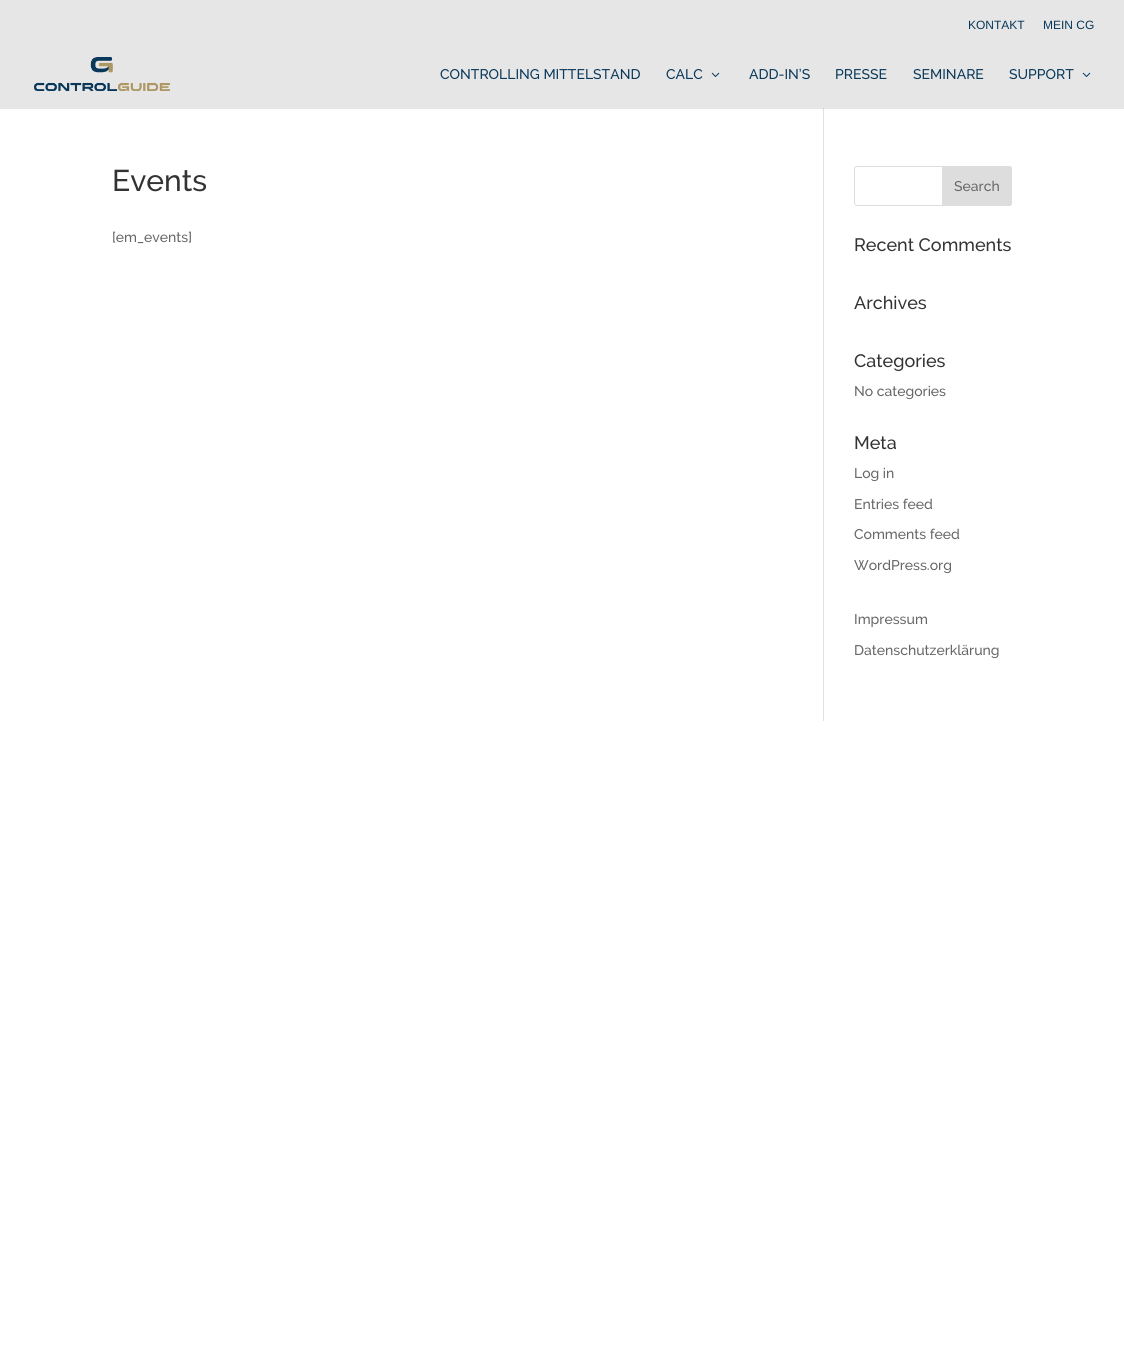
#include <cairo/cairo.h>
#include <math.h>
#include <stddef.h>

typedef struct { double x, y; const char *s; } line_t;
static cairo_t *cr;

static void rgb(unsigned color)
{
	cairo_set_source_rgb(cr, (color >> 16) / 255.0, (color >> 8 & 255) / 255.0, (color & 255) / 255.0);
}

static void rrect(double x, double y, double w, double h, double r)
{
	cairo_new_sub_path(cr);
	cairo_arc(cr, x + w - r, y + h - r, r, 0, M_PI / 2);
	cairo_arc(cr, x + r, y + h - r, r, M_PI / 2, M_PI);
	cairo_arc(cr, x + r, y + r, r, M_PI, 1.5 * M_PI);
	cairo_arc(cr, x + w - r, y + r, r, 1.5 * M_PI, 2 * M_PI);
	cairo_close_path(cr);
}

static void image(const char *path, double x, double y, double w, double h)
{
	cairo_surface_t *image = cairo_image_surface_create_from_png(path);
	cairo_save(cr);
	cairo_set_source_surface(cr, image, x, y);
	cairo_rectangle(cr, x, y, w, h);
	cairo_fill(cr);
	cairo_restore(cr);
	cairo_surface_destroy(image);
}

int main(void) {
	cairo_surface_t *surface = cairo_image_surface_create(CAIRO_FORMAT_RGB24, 1124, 1350);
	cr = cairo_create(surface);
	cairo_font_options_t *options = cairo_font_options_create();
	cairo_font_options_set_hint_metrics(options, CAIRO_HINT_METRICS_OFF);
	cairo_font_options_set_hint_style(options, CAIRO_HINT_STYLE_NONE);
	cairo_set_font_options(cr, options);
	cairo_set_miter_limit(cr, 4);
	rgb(0xffffff);
	cairo_paint(cr);
	rgb(0xe6e6e6);
	cairo_rectangle(cr, 0, 0, 1124, 109);
	cairo_fill(cr);
	image("img/1.png", 34, 57, 136, 34);
	image("img/2.png", 711, 72, 9, 5);
	image("img/2.png", 1082, 72, 9, 5);
	rgb(0xe2e2e2);
	cairo_rectangle(cr, 823, 108, 1, 613);
	cairo_fill(cr);
	rgb(0xcbcbcb);
	cairo_rectangle(cr, 823, 108, 1, 1);
	cairo_fill(cr);
	rrect(854.5, 166.5, 157, 39, 2.5);
	rgb(0xdddddd);
	cairo_set_line_width(cr, 1);
	cairo_stroke(cr);
	cairo_new_path(cr);
	cairo_move_to(cr, 942.5, 166.5);
	cairo_line_to(cr, 1009, 166.5);
	cairo_curve_to(cr, 1010.5, 166.5, 1011.5, 167.5, 1011.5, 169);
	cairo_line_to(cr, 1011.5, 203);
	cairo_curve_to(cr, 1011.5, 204.5, 1010.5, 205.5, 1009, 205.5);
	cairo_line_to(cr, 942.5, 205.5);
	cairo_close_path(cr);
	cairo_fill_preserve(cr);
	cairo_stroke(cr);
	cairo_select_font_face(cr, "Liberation Sans", CAIRO_FONT_SLANT_NORMAL, CAIRO_FONT_WEIGHT_NORMAL);
	cairo_set_font_size(cr, 12);
	rgb(0x09385a);
	cairo_move_to(cr, 968, 29);
	cairo_show_text(cr, "KONTAKT");
	cairo_move_to(cr, 1043, 29);
	cairo_show_text(cr, "MEIN CG");
	cairo_select_font_face(cr, "Raleway Medium", CAIRO_FONT_SLANT_NORMAL, CAIRO_FONT_WEIGHT_NORMAL);
	cairo_set_font_size(cr, 14);
	{
		static const line_t items[] = {
			{440, 79, "CONTROLLING MITTELSTAND"},
			{666, 79, "CALC"},
			{749, 79, "ADD-IN’S"},
			{835, 79, "PRESSE"},
			{913, 79, "SEMINARE"},
			{1009, 79, "SUPPORT"},
		};
		for (size_t i = 0; i < sizeof items / sizeof *items; i++) {
			cairo_move_to(cr, items[i].x, items[i].y);
			cairo_show_text(cr, items[i].s);
		}
	}
	cairo_set_font_size(cr, 30);
	rgb(0x333333);
	cairo_move_to(cr, 112, 191);
	cairo_show_text(cr, "Events");
	cairo_set_font_size(cr, 14);
	rgb(0x666666);
	cairo_move_to(cr, 112, 242);
	cairo_show_text(cr, "[em_events]");
	cairo_move_to(cr, 954, 191);
	cairo_show_text(cr, "Search");
	cairo_set_font_size(cr, 18);
	rgb(0x333333);
	{
		static const line_t items[] = {
			{854, 251, "Recent Comments"},
			{854, 309, "Archives"},
			{854, 367, "Categories"},
		};
		for (size_t i = 0; i < sizeof items / sizeof *items; i++) {
			cairo_move_to(cr, items[i].x, items[i].y);
			cairo_show_text(cr, items[i].s);
		}
	}
	cairo_set_font_size(cr, 14);
	rgb(0x666666);
	cairo_move_to(cr, 854, 396);
	cairo_show_text(cr, "No categories");
	cairo_set_font_size(cr, 18);
	rgb(0x333333);
	cairo_move_to(cr, 854, 449);
	cairo_show_text(cr, "Meta");
	cairo_set_font_size(cr, 14);
	rgb(0x666666);
	{
		static const line_t items[] = {
			{854, 478, "Log in"},
			{854, 509, "Entries feed"},
			{854, 539, "Comments feed"},
			{854, 570, "WordPress.org"},
			{854, 624, "Impressum"},
			{854, 655, "Datenschutzerklärung"},
		};
		for (size_t i = 0; i < sizeof items / sizeof *items; i++) {
			cairo_move_to(cr, items[i].x, items[i].y);
			cairo_show_text(cr, items[i].s);
		}
	}
	cairo_surface_write_to_png(surface, "page.png");
	cairo_font_options_destroy(options);
	cairo_destroy(cr);
	cairo_surface_destroy(surface);
	return 0;
}
